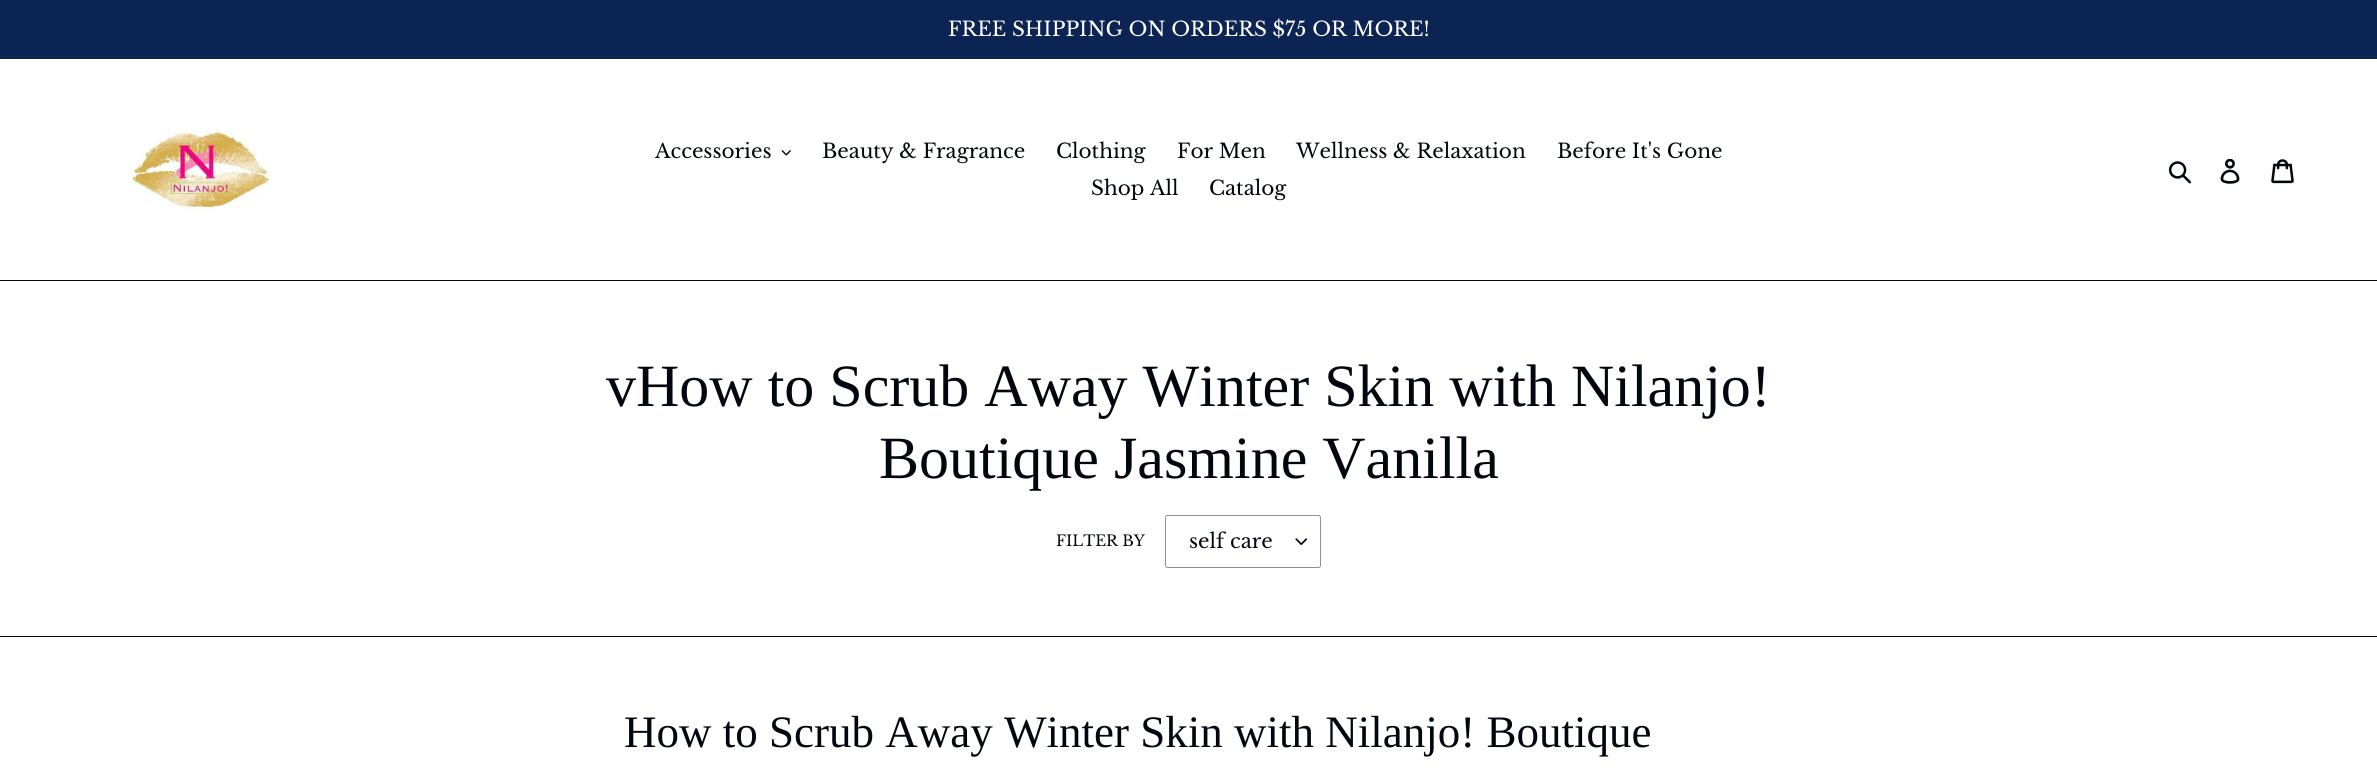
#include <cairo/cairo.h>
#include <math.h>
#include <stddef.h>

typedef struct { double x, y; const char *s; } line_t;
static cairo_t *cr;

static void rgb(unsigned color)
{
	cairo_set_source_rgb(cr, (color >> 16) / 255.0, (color >> 8 & 255) / 255.0, (color & 255) / 255.0);
}

static void rrect(double x, double y, double w, double h, double r)
{
	cairo_new_sub_path(cr);
	cairo_arc(cr, x + w - r, y + h - r, r, 0, M_PI / 2);
	cairo_arc(cr, x + r, y + h - r, r, M_PI / 2, M_PI);
	cairo_arc(cr, x + r, y + r, r, M_PI, 1.5 * M_PI);
	cairo_arc(cr, x + w - r, y + r, r, 1.5 * M_PI, 2 * M_PI);
	cairo_close_path(cr);
}

static void image(const char *path, double x, double y, double w, double h)
{
	cairo_surface_t *image = cairo_image_surface_create_from_png(path);
	cairo_save(cr);
	cairo_set_source_surface(cr, image, x, y);
	cairo_rectangle(cr, x, y, w, h);
	cairo_fill(cr);
	cairo_restore(cr);
	cairo_surface_destroy(image);
}

int main(void) {
	cairo_surface_t *surface = cairo_image_surface_create(CAIRO_FORMAT_RGB24, 2377, 784);
	cr = cairo_create(surface);
	cairo_font_options_t *options = cairo_font_options_create();
	cairo_font_options_set_hint_metrics(options, CAIRO_HINT_METRICS_OFF);
	cairo_font_options_set_hint_style(options, CAIRO_HINT_STYLE_NONE);
	cairo_set_font_options(cr, options);
	cairo_set_miter_limit(cr, 4);
	rgb(0xffffff);
	cairo_paint(cr);
	rgb(0x0c2454);
	cairo_rectangle(cr, 0, 0, 2377, 59);
	cairo_fill(cr);
	rgb(0x02060e);
	cairo_rectangle(cr, 0, 280, 2377, 1);
	cairo_fill(cr);
	image("img/1.png", 130, 132, 141, 80);
	image("img/2.png", 781, 150, 10, 6);
	image("img/3.png", 2168, 161, 23, 23);
	image("img/4.png", 2220, 159, 20, 25);
	image("img/5.png", 2271, 159, 23, 25);
	image("img/6.png", 1295, 538, 13, 7);
	rrect(1165.5, 515.5, 155, 52, 2);
	rgb(0x909090);
	cairo_set_line_width(cr, 1);
	cairo_stroke(cr);
	rgb(0x02060e);
	cairo_rectangle(cr, 0, 636, 2377, 1);
	cairo_fill(cr);
	cairo_select_font_face(cr, "Libre Baskerville", CAIRO_FONT_SLANT_NORMAL, CAIRO_FONT_WEIGHT_NORMAL);
	cairo_set_font_size(cr, 20);
	rgb(0xffffff);
	cairo_move_to(cr, 948, 36);
	cairo_show_text(cr, "FREE SHIPPING ON ORDERS $75 OR MORE!");
	rgb(0x02060e);
	{
		static const line_t items[] = {
			{655, 158, "Accessories"},
			{822, 158, "Beauty & Fragrance"},
			{1056, 158, "Clothing"},
			{1177, 158, "For Men"},
			{1296, 158, "Wellness & Relaxation"},
			{1557, 158, "Before It's Gone"},
			{1091, 195, "Shop All"},
			{1209, 195, "Catalog"},
		};
		for (size_t i = 0; i < sizeof items / sizeof *items; i++) {
			cairo_move_to(cr, items[i].x, items[i].y);
			cairo_show_text(cr, items[i].s);
		}
	}
	cairo_select_font_face(cr, "Liberation Serif", CAIRO_FONT_SLANT_NORMAL, CAIRO_FONT_WEIGHT_NORMAL);
	cairo_set_font_size(cr, 60);
	cairo_move_to(cr, 606, 406);
	cairo_show_text(cr, "vHow to Scrub Away Winter Skin with Nilanjo!");
	cairo_move_to(cr, 879, 478);
	cairo_show_text(cr, "Boutique Jasmine Vanilla");
	cairo_select_font_face(cr, "Libre Baskerville", CAIRO_FONT_SLANT_NORMAL, CAIRO_FONT_WEIGHT_NORMAL);
	cairo_set_font_size(cr, 15);
	cairo_move_to(cr, 1056, 546);
	cairo_show_text(cr, "FILTER BY");
	cairo_set_font_size(cr, 20);
	cairo_move_to(cr, 1189, 548);
	cairo_show_text(cr, "self care");
	cairo_select_font_face(cr, "Liberation Serif", CAIRO_FONT_SLANT_NORMAL, CAIRO_FONT_WEIGHT_NORMAL);
	cairo_set_font_size(cr, 45);
	cairo_move_to(cr, 624, 747);
	cairo_show_text(cr, "How to Scrub Away Winter Skin with Nilanjo! Boutique");
	cairo_surface_write_to_png(surface, "page.png");
	cairo_font_options_destroy(options);
	cairo_destroy(cr);
	cairo_surface_destroy(surface);
	return 0;
}
